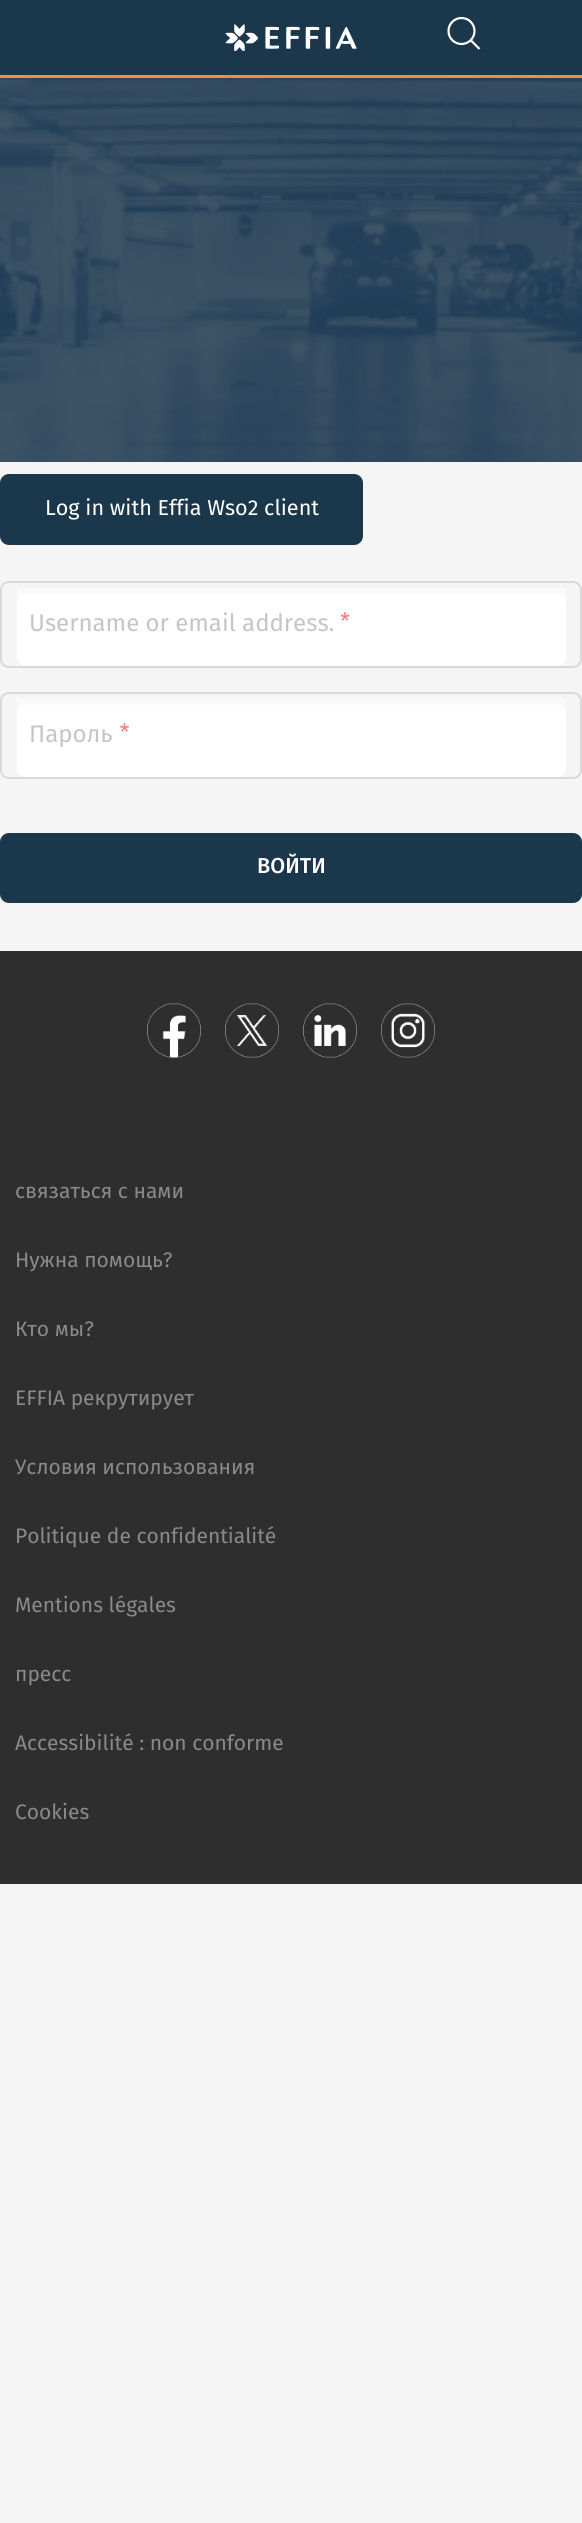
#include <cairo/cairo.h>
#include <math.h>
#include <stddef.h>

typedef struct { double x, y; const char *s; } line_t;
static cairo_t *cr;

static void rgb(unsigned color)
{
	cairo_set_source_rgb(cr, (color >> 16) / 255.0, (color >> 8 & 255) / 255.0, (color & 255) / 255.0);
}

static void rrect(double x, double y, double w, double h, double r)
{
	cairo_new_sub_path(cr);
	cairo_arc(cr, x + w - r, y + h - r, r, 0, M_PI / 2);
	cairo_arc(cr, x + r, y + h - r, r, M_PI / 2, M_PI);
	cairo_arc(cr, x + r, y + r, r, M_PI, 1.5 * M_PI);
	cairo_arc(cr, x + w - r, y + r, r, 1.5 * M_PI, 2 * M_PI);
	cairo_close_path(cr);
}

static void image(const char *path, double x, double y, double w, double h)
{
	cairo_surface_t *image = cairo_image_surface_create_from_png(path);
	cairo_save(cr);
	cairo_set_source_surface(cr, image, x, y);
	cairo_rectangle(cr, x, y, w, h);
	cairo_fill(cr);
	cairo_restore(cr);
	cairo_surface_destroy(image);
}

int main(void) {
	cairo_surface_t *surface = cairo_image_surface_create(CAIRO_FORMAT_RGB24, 582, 2523);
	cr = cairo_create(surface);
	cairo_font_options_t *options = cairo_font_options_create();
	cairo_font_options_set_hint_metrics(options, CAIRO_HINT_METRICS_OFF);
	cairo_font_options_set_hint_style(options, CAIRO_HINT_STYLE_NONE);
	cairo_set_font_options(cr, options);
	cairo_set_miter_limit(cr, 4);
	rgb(0xf5f5f6);
	cairo_paint(cr);
	rgb(0x1b374c);
	cairo_rectangle(cr, 0, 0, 582, 75);
	cairo_fill(cr);
	rgb(0xf39325);
	cairo_rectangle(cr, 0, 75, 582, 3);
	cairo_fill(cr);
	image("img/1.png", 225, 24, 132, 27);
	cairo_save(cr);
	rrect(447, 15, 36, 36, 9);
	cairo_clip(cr);
	cairo_new_path(cr);
	cairo_move_to(cr, 480, 49.5);
	cairo_line_to(cr, 471, 40.5);
	rgb(0xffffff);
	cairo_set_line_width(cr, 2.2);
	cairo_stroke(cr);
	cairo_restore(cr);
	cairo_arc(cr, 461.5, 31, 13, 0, 2 * M_PI);
	rgb(0xffffff);
	cairo_set_line_width(cr, 2.2);
	cairo_stroke(cr);
	image("img/2.png", 0, 78, 582, 384);
	rgb(0x1b374c);
	rrect(0, 474, 363, 71, 9);
	cairo_fill(cr);
	rrect(1, 582, 580, 85, 8);
	rgb(0xd9d9d9);
	cairo_set_line_width(cr, 2);
	cairo_stroke(cr);
	rgb(0xffffff);
	rrect(17, 594, 549, 72, 9);
	cairo_fill(cr);
	cairo_set_source_rgba(cr, 1, 1, 1, 0.5);
	cairo_rectangle(cr, 17, 588, 549, 12);
	cairo_fill(cr);
	image("img/3.png", 341, 612, 9, 9);
	rrect(1, 693, 580, 85, 8);
	rgb(0xd9d9d9);
	cairo_stroke(cr);
	rgb(0xffffff);
	rrect(17, 705, 549, 72, 9);
	cairo_fill(cr);
	cairo_set_source_rgba(cr, 1, 1, 1, 0.5);
	cairo_rectangle(cr, 17, 699, 549, 12);
	cairo_fill(cr);
	image("img/4.png", 120, 723, 9, 9);
	rgb(0x1b374c);
	rrect(0, 833, 582, 70, 9);
	cairo_fill(cr);
	rgb(0x2e2e2e);
	cairo_rectangle(cr, 0, 951, 582, 933);
	cairo_fill(cr);
	image("img/5.png", 147, 1003, 54, 55);
	image("img/6.png", 225, 1003, 54, 55);
	image("img/7.png", 303, 1003, 54, 55);
	image("img/8.png", 381, 1003, 54, 55);
	cairo_select_font_face(cr, "Fira Sans", CAIRO_FONT_SLANT_NORMAL, CAIRO_FONT_WEIGHT_NORMAL);
	cairo_set_font_size(cr, 21.6);
	rgb(0xffffff);
	cairo_move_to(cr, 45, 515);
	cairo_show_text(cr, "Log in with Effia Wso2 client");
	cairo_set_font_size(cr, 24);
	rgb(0xc5c5c5);
	cairo_move_to(cr, 29, 631);
	cairo_show_text(cr, "Username or email address.");
	cairo_move_to(cr, 29, 742);
	cairo_show_text(cr, "Пароль");
	cairo_select_font_face(cr, "Fira Sans Medium", CAIRO_FONT_SLANT_NORMAL, CAIRO_FONT_WEIGHT_NORMAL);
	cairo_set_font_size(cr, 21.6);
	rgb(0xffffff);
	cairo_move_to(cr, 257, 873);
	cairo_show_text(cr, "ВОЙТИ");
	cairo_select_font_face(cr, "Fira Sans", CAIRO_FONT_SLANT_NORMAL, CAIRO_FONT_WEIGHT_NORMAL);
	cairo_set_font_size(cr, 21);
	rgb(0x8a8a8a);
	{
		static const line_t items[] = {
			{15, 1198, "связаться с нами"},
			{15, 1267, "Нужна помощь?"},
			{15, 1336, "Кто мы?"},
			{15, 1405, "EFFIA рекрутирует"},
			{15, 1474, "Условия использования"},
			{15, 1543, "Politique de confidentialité"},
			{15, 1612, "Mentions légales"},
			{15, 1681, "пресс"},
			{15, 1750, "Accessibilité : non conforme"},
			{15, 1819, "Cookies"},
		};
		for (size_t i = 0; i < sizeof items / sizeof *items; i++) {
			cairo_move_to(cr, items[i].x, items[i].y);
			cairo_show_text(cr, items[i].s);
		}
	}
	cairo_surface_write_to_png(surface, "page.png");
	cairo_font_options_destroy(options);
	cairo_destroy(cr);
	cairo_surface_destroy(surface);
	return 0;
}
